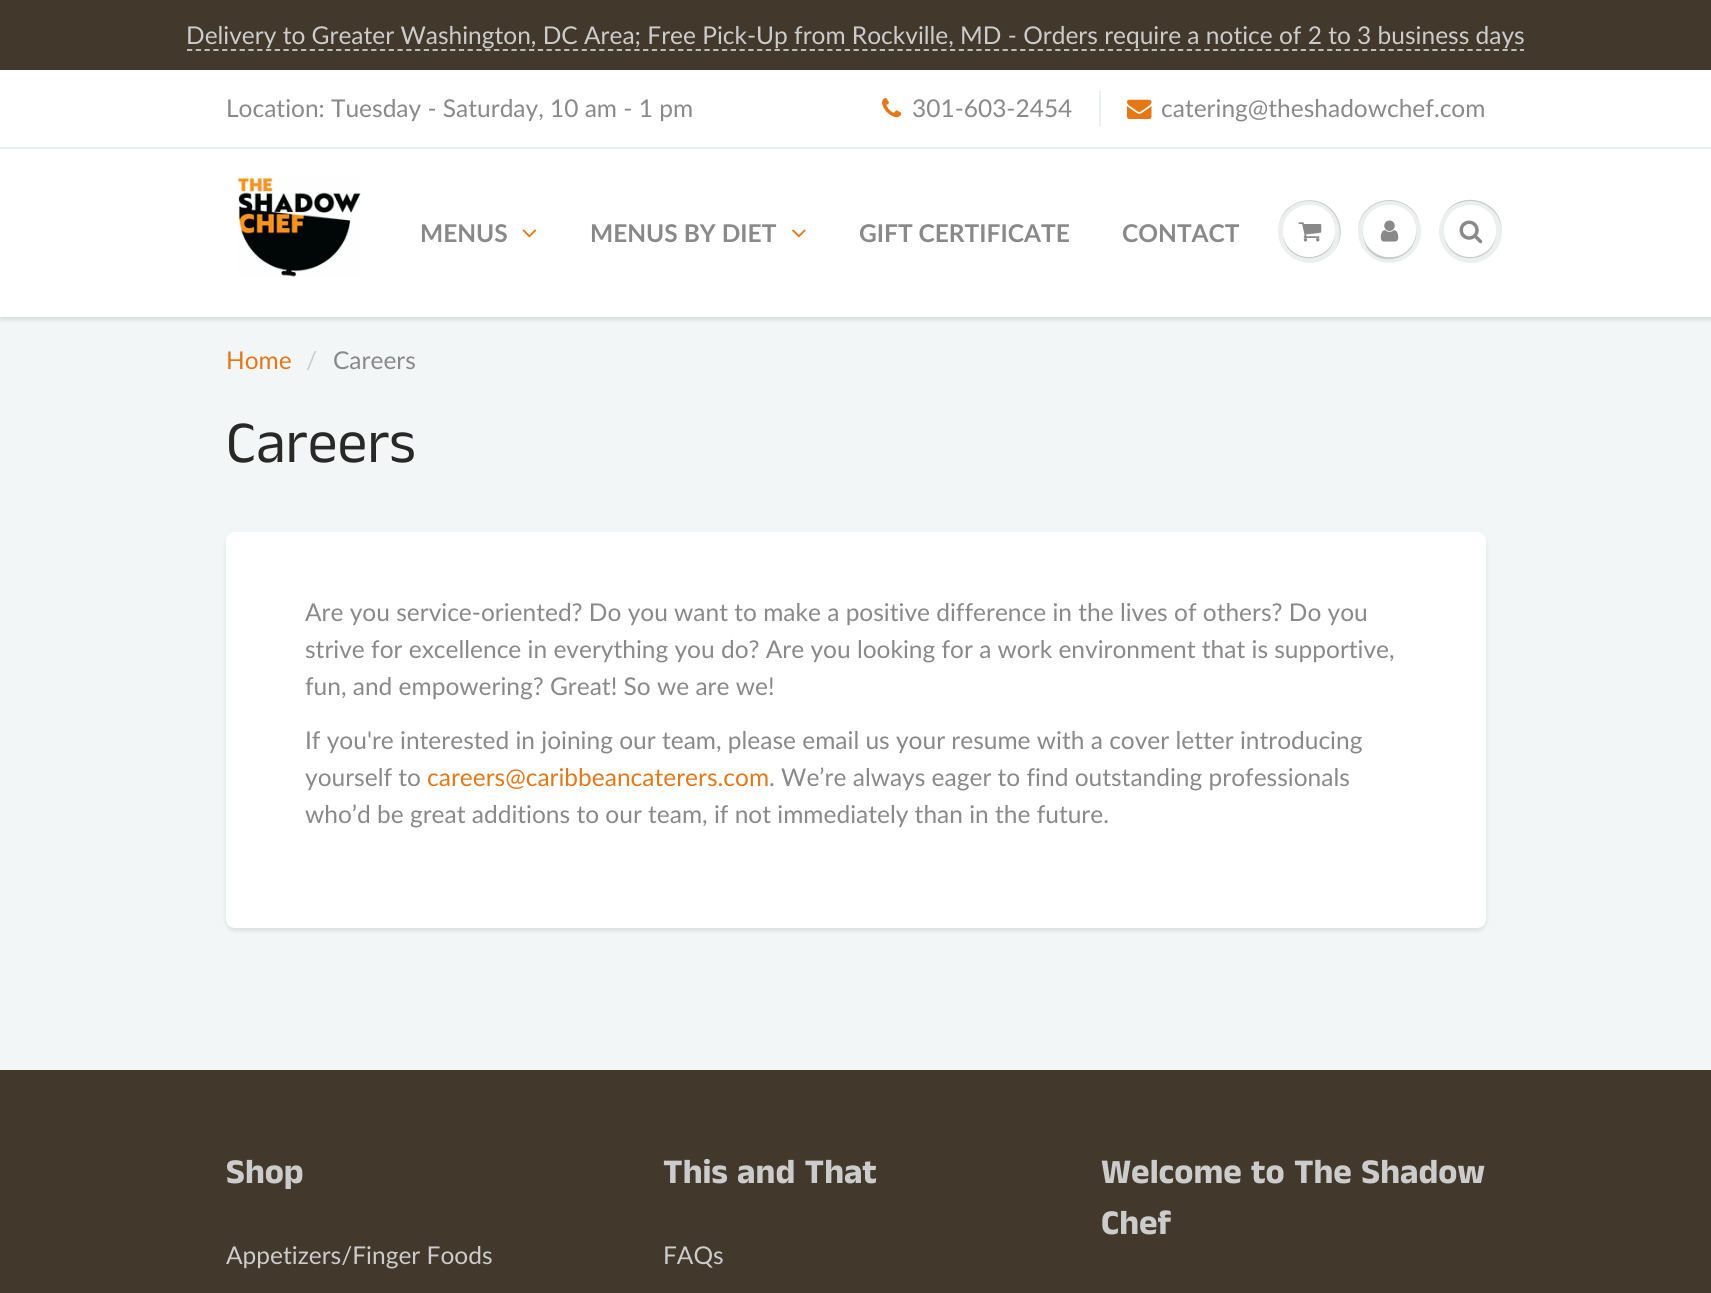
#include <cairo/cairo.h>
#include <math.h>
#include <stddef.h>

typedef struct { double x, y; const char *s; } line_t;
static cairo_t *cr;

static void rgb(unsigned color)
{
	cairo_set_source_rgb(cr, (color >> 16) / 255.0, (color >> 8 & 255) / 255.0, (color & 255) / 255.0);
}

static void rrect(double x, double y, double w, double h, double r)
{
	cairo_new_sub_path(cr);
	cairo_arc(cr, x + w - r, y + h - r, r, 0, M_PI / 2);
	cairo_arc(cr, x + r, y + h - r, r, M_PI / 2, M_PI);
	cairo_arc(cr, x + r, y + r, r, M_PI, 1.5 * M_PI);
	cairo_arc(cr, x + w - r, y + r, r, 1.5 * M_PI, 2 * M_PI);
	cairo_close_path(cr);
}

static void soft_shadow(double x, double y, double w, double h, double r, double blur, double alpha)
{
	cairo_push_group_with_content(cr, CAIRO_CONTENT_ALPHA);
	cairo_set_operator(cr, CAIRO_OPERATOR_SOURCE);
	for (int i = 15; i >= -15 && fmin(w, h) + blur * i / 3 > 0; i -= 2) {
		double e = blur * i / 6;
		cairo_set_source_rgba(cr, 0, 0, 0, alpha * erfc((i - 1) / 8.5) / 2);
		rrect(x - e, y - e, w + 2 * e, h + 2 * e, fmax(0, fmin(r + e + blur * .6, fmin(w, h) / 2 + e)));
		cairo_fill(cr);
	}
	cairo_pattern_t *soft = cairo_pop_group(cr);
	cairo_mask(cr, soft);
	cairo_pattern_destroy(soft);
}

static void image(const char *path, double x, double y, double w, double h)
{
	cairo_surface_t *image = cairo_image_surface_create_from_png(path);
	cairo_save(cr);
	cairo_set_source_surface(cr, image, x, y);
	cairo_rectangle(cr, x, y, w, h);
	cairo_fill(cr);
	cairo_restore(cr);
	cairo_surface_destroy(image);
}

int main(void) {
	cairo_surface_t *surface = cairo_image_surface_create(CAIRO_FORMAT_RGB24, 1711, 1293);
	cr = cairo_create(surface);
	cairo_font_options_t *options = cairo_font_options_create();
	cairo_font_options_set_hint_metrics(options, CAIRO_HINT_METRICS_OFF);
	cairo_font_options_set_hint_style(options, CAIRO_HINT_STYLE_NONE);
	cairo_set_font_options(cr, options);
	cairo_set_miter_limit(cr, 4);
	rgb(0xffffff);
	cairo_paint(cr);
	rgb(0x42382c);
	cairo_rectangle(cr, 0, 0, 1711, 70);
	cairo_fill(cr);
	cairo_new_path(cr);
	cairo_move_to(cr, 187, 50);
	cairo_line_to(cr, 1524, 50);
	rgb(0xcccccc);
	cairo_set_line_width(cr, 1.8);
	cairo_set_dash(cr, (double[]){5.25, 3.52}, 2, 0);
	cairo_stroke(cr);
	image("img/1.png", 882, 98, 20, 20);
	rgb(0xecefef);
	cairo_rectangle(cr, 1099, 91, 2, 35);
	cairo_fill(cr);
	image("img/2.png", 1127, 99, 25, 20);
	rgb(0xf3f6f6);
	cairo_rectangle(cr, 0, 317, 1711, 751);
	cairo_fill(cr);
	rgb(0x0b191c);
	soft_shadow(0, 151, 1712, 169, 0, 2, 0.12);
	rgb(0xffffff);
	cairo_rectangle(cr, 0, 149, 1711, 168);
	cairo_fill(cr);
	rgb(0xecefef);
	cairo_rectangle(cr, 0, 147, 1711, 2);
	cairo_fill(cr);
	image("img/3.png", 237, 175, 124, 102);
	image("img/4.png", 522, 229, 15, 9);
	image("img/5.png", 792, 229, 14, 9);
	rgb(0xedefef);
	cairo_arc(cr, 1309.5, 231.5, 31.5, 0, 2 * M_PI);
	cairo_fill(cr);
	rgb(0xc9cbcb);
	cairo_new_path(cr);
	cairo_move_to(cr, 1309, 201);
	cairo_curve_to(cr, 1335, 201, 1349, 232, 1333, 252);
	cairo_curve_to(cr, 1352, 230, 1333, 195, 1303, 201);
	cairo_curve_to(cr, 1297, 202, 1292, 205, 1287, 209);
	cairo_curve_to(cr, 1281, 215, 1278, 224, 1278, 232);
	cairo_curve_to(cr, 1278, 215, 1292, 201, 1309, 201);
	cairo_close_path(cr);
	cairo_fill(cr);
	cairo_new_path(cr);
	cairo_move_to(cr, 1283, 235);
	cairo_curve_to(cr, 1286, 266, 1332, 266, 1335, 235);
	cairo_curve_to(cr, 1330, 264, 1288, 264, 1283, 235);
	cairo_close_path(cr);
	cairo_fill(cr);
	rgb(0xffffff);
	cairo_arc(cr, 1309, 231, 26, 0, 2 * M_PI);
	cairo_fill(cr);
	cairo_new_path(cr);
	cairo_move_to(cr, 1309, 206);
	cairo_curve_to(cr, 1323, 206, 1334, 217, 1335, 232);
	cairo_curve_to(cr, 1335, 227, 1334, 221, 1331, 216);
	cairo_curve_to(cr, 1316, 195, 1282, 206, 1283, 232);
	cairo_curve_to(cr, 1284, 217, 1295, 206, 1309, 206);
	cairo_close_path(cr);
	cairo_fill(cr);
	image("img/6.png", 1298, 222, 24, 20);
	rgb(0xedefef);
	cairo_arc(cr, 1389.5, 231.5, 31.5, 0, 2 * M_PI);
	cairo_fill(cr);
	rgb(0xc9cbcb);
	cairo_new_path(cr);
	cairo_move_to(cr, 1390, 201);
	cairo_curve_to(cr, 1407, 201, 1421, 215, 1421, 232);
	cairo_curve_to(cr, 1421, 226, 1419, 219, 1416, 214);
	cairo_curve_to(cr, 1398, 188, 1357, 201, 1358, 232);
	cairo_curve_to(cr, 1358, 215, 1372, 201, 1390, 201);
	cairo_close_path(cr);
	cairo_fill(cr);
	cairo_new_path(cr);
	cairo_move_to(cr, 1363, 229);
	cairo_curve_to(cr, 1362, 235, 1364, 242, 1367, 248);
	cairo_curve_to(cr, 1383, 271, 1420, 256, 1416, 229);
	cairo_curve_to(cr, 1416, 235, 1415, 241, 1411, 246);
	cairo_curve_to(cr, 1396, 268, 1361, 255, 1363, 229);
	cairo_close_path(cr);
	cairo_fill(cr);
	rgb(0xffffff);
	rrect(1363, 205, 53, 52, 26);
	cairo_fill(cr);
	cairo_new_path(cr);
	cairo_move_to(cr, 1390, 206);
	cairo_curve_to(cr, 1404, 206, 1415, 217, 1416, 232);
	cairo_curve_to(cr, 1416, 227, 1415, 221, 1412, 216);
	cairo_curve_to(cr, 1397, 195, 1362, 206, 1363, 232);
	cairo_curve_to(cr, 1364, 217, 1375, 206, 1390, 206);
	cairo_close_path(cr);
	cairo_fill(cr);
	image("img/7.png", 1380, 220, 19, 22);
	rgb(0xedefef);
	cairo_arc(cr, 1470.5, 231.5, 31.5, 0, 2 * M_PI);
	cairo_fill(cr);
	rgb(0xc9cbcb);
	cairo_new_path(cr);
	cairo_move_to(cr, 1470, 201);
	cairo_curve_to(cr, 1487, 201, 1502, 215, 1502, 232);
	cairo_curve_to(cr, 1503, 200, 1461, 188, 1444, 214);
	cairo_curve_to(cr, 1450, 206, 1460, 201, 1470, 201);
	cairo_close_path(cr);
	cairo_move_to(cr, 1444, 235);
	cairo_curve_to(cr, 1447, 266, 1493, 266, 1496, 235);
	cairo_curve_to(cr, 1491, 264, 1449, 264, 1444, 235);
	cairo_close_path(cr);
	cairo_fill(cr);
	rgb(0xffffff);
	cairo_arc(cr, 1470, 231, 26, 0, 2 * M_PI);
	cairo_fill(cr);
	cairo_new_path(cr);
	cairo_move_to(cr, 1470, 206);
	cairo_curve_to(cr, 1484, 206, 1495, 217, 1496, 232);
	cairo_curve_to(cr, 1496, 227, 1495, 221, 1492, 216);
	cairo_curve_to(cr, 1477, 195, 1443, 206, 1444, 232);
	cairo_curve_to(cr, 1445, 217, 1456, 206, 1470, 206);
	cairo_close_path(cr);
	cairo_fill(cr);
	image("img/8.png", 1459, 220, 24, 24);
	rgb(0x0b191c);
	soft_shadow(226, 536, 1260, 395, 9, 2, 0.1);
	rgb(0xffffff);
	rrect(226, 532, 1260, 396, 9);
	cairo_fill(cr);
	rgb(0x42382c);
	cairo_rectangle(cr, 0, 1070, 1711, 223);
	cairo_fill(cr);
	rgb(0xf2f6f6);
	cairo_rectangle(cr, 0, 1068, 1711, 2);
	cairo_fill(cr);
	cairo_select_font_face(cr, "Lato", CAIRO_FONT_SLANT_NORMAL, CAIRO_FONT_WEIGHT_NORMAL);
	cairo_set_font_size(cr, 24.5);
	rgb(0xcccccc);
	cairo_move_to(cr, 186, 44);
	cairo_show_text(cr, "Delivery to Greater Washington, DC Area; Free Pick-Up from Rockville, MD - Orders require a notice of 2 to 3 business days");
	rgb(0x898989);
	{
		static const line_t items[] = {
			{226, 117, "Location: Tuesday - Saturday, 10 am - 1 pm"},
			{912, 117, "301-603-2454"},
			{1161, 117, "catering@theshadowchef.com"},
		};
		for (size_t i = 0; i < sizeof items / sizeof *items; i++) {
			cairo_move_to(cr, items[i].x, items[i].y);
			cairo_show_text(cr, items[i].s);
		}
	}
	cairo_select_font_face(cr, "Lato", CAIRO_FONT_SLANT_NORMAL, CAIRO_FONT_WEIGHT_BOLD);
	{
		static const line_t items[] = {
			{420, 242, "MENUS"},
			{590, 242, "MENUS BY DIET"},
			{859, 242, "GIFT CERTIFICATE"},
			{1122, 242, "CONTACT"},
		};
		for (size_t i = 0; i < sizeof items / sizeof *items; i++) {
			cairo_move_to(cr, items[i].x, items[i].y);
			cairo_show_text(cr, items[i].s);
		}
	}
	cairo_select_font_face(cr, "Lato", CAIRO_FONT_SLANT_NORMAL, CAIRO_FONT_WEIGHT_NORMAL);
	rgb(0xe57717);
	cairo_move_to(cr, 226, 369);
	cairo_show_text(cr, "Home");
	rgb(0xcccccc);
	cairo_move_to(cr, 306, 369);
	cairo_show_text(cr, "/");
	rgb(0x898989);
	cairo_move_to(cr, 333, 369);
	cairo_show_text(cr, "Careers");
	cairo_select_font_face(cr, "Anek Tamil", CAIRO_FONT_SLANT_NORMAL, CAIRO_FONT_WEIGHT_NORMAL);
	cairo_set_font_size(cr, 59.5);
	rgb(0x282827);
	cairo_move_to(cr, 226, 462);
	cairo_show_text(cr, "Careers");
	cairo_select_font_face(cr, "Lato", CAIRO_FONT_SLANT_NORMAL, CAIRO_FONT_WEIGHT_NORMAL);
	cairo_set_font_size(cr, 24.5);
	rgb(0x898989);
	{
		static const line_t items[] = {
			{305, 621, "Are you service-oriented? Do you want to make a positive difference in the lives of others? Do you"},
			{305, 658, "strive for excellence in everything you do? Are you looking for a work environment that is supportive,"},
			{305, 695, "fun, and empowering? Great! So we are we!"},
			{305, 749, "If you're interested in joining our team, please email us your resume with a cover letter introducing"},
			{305, 786, "yourself to"},
		};
		for (size_t i = 0; i < sizeof items / sizeof *items; i++) {
			cairo_move_to(cr, items[i].x, items[i].y);
			cairo_show_text(cr, items[i].s);
		}
	}
	rgb(0xe57717);
	cairo_move_to(cr, 427, 786);
	cairo_show_text(cr, "careers@caribbeancaterers.com");
	rgb(0x898989);
	cairo_move_to(cr, 769, 786);
	cairo_show_text(cr, ". We’re always eager to find outstanding professionals");
	cairo_move_to(cr, 305, 823);
	cairo_show_text(cr, "who’d be great additions to our team, if not immediately than in the future.");
	cairo_select_font_face(cr, "Anek Tamil", CAIRO_FONT_SLANT_NORMAL, CAIRO_FONT_WEIGHT_BOLD);
	cairo_set_font_size(cr, 35);
	rgb(0xcccccc);
	cairo_move_to(cr, 226, 1183);
	cairo_show_text(cr, "Shop");
	cairo_select_font_face(cr, "Lato", CAIRO_FONT_SLANT_NORMAL, CAIRO_FONT_WEIGHT_NORMAL);
	cairo_set_font_size(cr, 24.5);
	cairo_move_to(cr, 226, 1264);
	cairo_show_text(cr, "Appetizers/Finger Foods");
	cairo_select_font_face(cr, "Anek Tamil", CAIRO_FONT_SLANT_NORMAL, CAIRO_FONT_WEIGHT_BOLD);
	cairo_set_font_size(cr, 35);
	cairo_move_to(cr, 663, 1183);
	cairo_show_text(cr, "This and That");
	cairo_select_font_face(cr, "Lato", CAIRO_FONT_SLANT_NORMAL, CAIRO_FONT_WEIGHT_NORMAL);
	cairo_set_font_size(cr, 24.5);
	cairo_move_to(cr, 663, 1264);
	cairo_show_text(cr, "FAQs");
	cairo_select_font_face(cr, "Anek Tamil", CAIRO_FONT_SLANT_NORMAL, CAIRO_FONT_WEIGHT_BOLD);
	cairo_set_font_size(cr, 35);
	cairo_move_to(cr, 1101, 1183);
	cairo_show_text(cr, "Welcome to The Shadow");
	cairo_move_to(cr, 1101, 1234);
	cairo_show_text(cr, "Chef");
	cairo_surface_write_to_png(surface, "page.png");
	cairo_font_options_destroy(options);
	cairo_destroy(cr);
	cairo_surface_destroy(surface);
	return 0;
}
